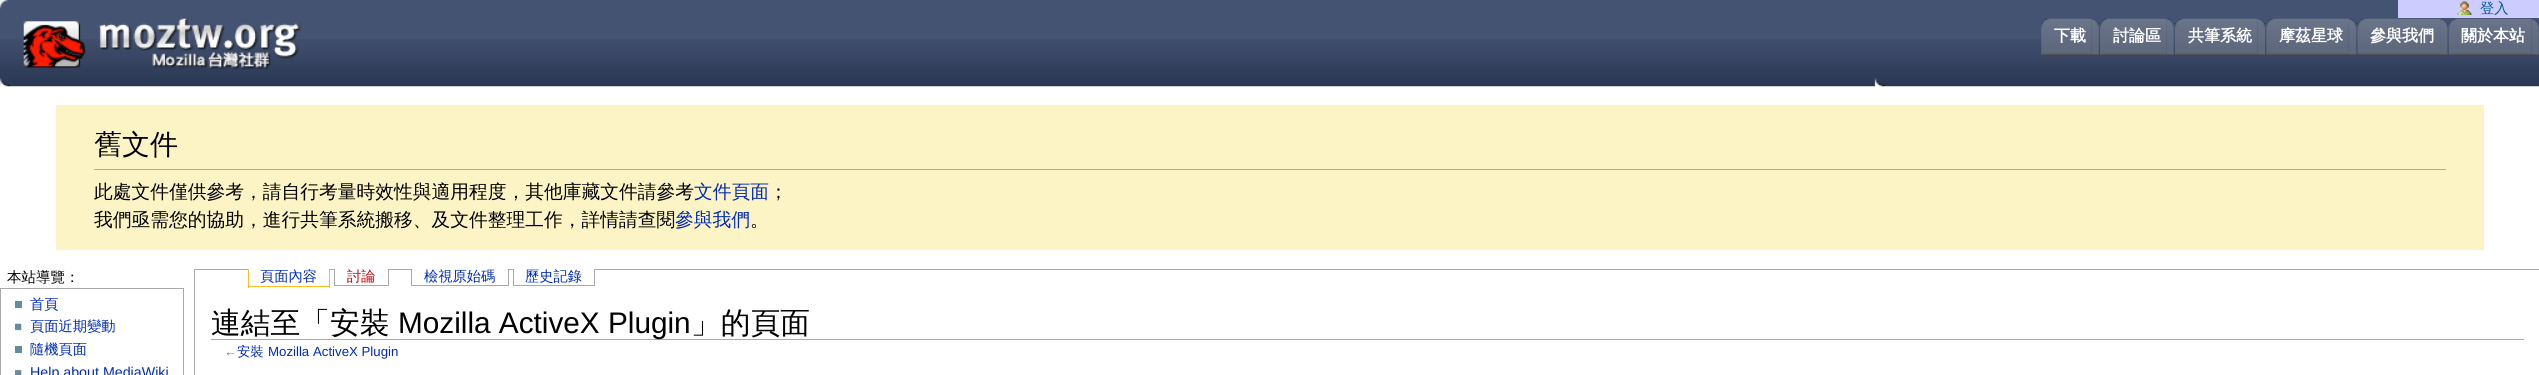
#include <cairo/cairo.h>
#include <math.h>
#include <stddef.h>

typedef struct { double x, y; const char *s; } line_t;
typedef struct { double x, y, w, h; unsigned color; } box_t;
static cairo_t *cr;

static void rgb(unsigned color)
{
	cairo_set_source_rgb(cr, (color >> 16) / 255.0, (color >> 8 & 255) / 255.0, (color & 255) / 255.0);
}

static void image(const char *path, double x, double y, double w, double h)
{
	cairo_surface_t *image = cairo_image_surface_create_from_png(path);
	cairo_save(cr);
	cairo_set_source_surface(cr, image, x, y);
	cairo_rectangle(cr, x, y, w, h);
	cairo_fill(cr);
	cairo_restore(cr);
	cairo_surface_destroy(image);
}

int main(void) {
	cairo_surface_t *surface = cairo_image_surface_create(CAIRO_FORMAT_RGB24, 2539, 375);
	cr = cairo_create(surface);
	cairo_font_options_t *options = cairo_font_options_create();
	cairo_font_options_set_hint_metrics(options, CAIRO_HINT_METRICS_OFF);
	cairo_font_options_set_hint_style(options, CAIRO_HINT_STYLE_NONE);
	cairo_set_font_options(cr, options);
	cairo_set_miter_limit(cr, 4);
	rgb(0xffffff);
	cairo_paint(cr);
	rgb(0x455372);
	cairo_rectangle(cr, 0, 0, 2539, 39);
	cairo_fill(cr);
	rgb(0xccccff);
	cairo_rectangle(cr, 2398, 0, 141, 18);
	cairo_fill(cr);
	image("img/1.png", 2457, 1, 15, 14);
	cairo_rectangle(cr, 0.5, 288.5, 183, 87);
	rgb(0xaaaaaa);
	cairo_set_line_width(cr, 1);
	cairo_stroke(cr);
	rgb(0x638c9c);
	cairo_rectangle(cr, 15, 301, 7, 7);
	cairo_fill(cr);
	image("img/2.png", 15, 323, 7, 8);
	cairo_rectangle(cr, 15, 346, 7, 7);
	cairo_fill(cr);
	image("img/3.png", 15, 369, 7, 6);
	{
		static const box_t items[] = {
			{194, 269, 2345, 1, 0xaaaaaa},
			{194, 269, 1, 106, 0xaaaaaa},
			{249, 269, 80, 1, 0xffffff},
			{329, 269, 1, 19, 0xfabd23},
			{248, 286, 82, 1, 0xfabd23},
			{248, 269, 1, 19, 0xfabd23},
			{335, 269, 53, 1, 0xffffff},
			{388, 269, 1, 17, 0xaaaaaa},
			{334, 285, 55, 1, 0xaaaaaa},
			{334, 269, 1, 17, 0xaaaaaa},
			{412, 269, 96, 1, 0xffffff},
			{508, 269, 1, 17, 0xaaaaaa},
			{411, 285, 98, 1, 0xaaaaaa},
			{411, 269, 1, 17, 0xaaaaaa},
			{514, 269, 80, 1, 0xffffff},
			{594, 269, 1, 17, 0xaaaaaa},
			{513, 285, 82, 1, 0xaaaaaa},
			{513, 269, 1, 17, 0xaaaaaa},
			{211, 339, 2313, 1, 0xaaaaaa},
		};
		for (size_t i = 0; i < sizeof items / sizeof *items; i++) {
			rgb(items[i].color);
			cairo_rectangle(cr, items[i].x, items[i].y, items[i].w, items[i].h);
			cairo_fill(cr);
		}
	}
	image("img/4.png", 0, 39, 2539, 48);
	image("img/5.png", 0, 0, 8, 9);
	image("img/6.png", 23, 17, 278, 53);
	image("img/7.png", 2091, 18, 8, 36);
	rgb(0x515358);
	cairo_rectangle(cr, 2041, 54, 58, 1);
	cairo_fill(cr);
	image("img/8.png", 2041, 18, 51, 36);
	image("img/9.png", 2166, 18, 8, 36);
	cairo_rectangle(cr, 2100, 54, 74, 1);
	cairo_fill(cr);
	image("img/10.png", 2100, 18, 67, 36);
	image("img/11.png", 2257, 18, 8, 36);
	cairo_rectangle(cr, 2175, 54, 90, 1);
	cairo_fill(cr);
	image("img/12.png", 2175, 18, 83, 36);
	image("img/13.png", 2348, 18, 9, 37);
	cairo_rectangle(cr, 2266, 54, 90, 1);
	cairo_fill(cr);
	image("img/14.png", 2266, 18, 83, 36);
	image("img/15.png", 2440, 18, 8, 36);
	cairo_rectangle(cr, 2358, 54, 90, 1);
	cairo_fill(cr);
	image("img/16.png", 2357, 18, 83, 36);
	image("img/7.png", 2531, 18, 8, 36);
	cairo_rectangle(cr, 2449, 54, 90, 1);
	cairo_fill(cr);
	image("img/17.png", 2448, 18, 84, 36);
	rgb(0xfcf4c4);
	cairo_rectangle(cr, 56, 105, 2428, 145);
	cairo_fill(cr);
	rgb(0xaaaaaa);
	cairo_rectangle(cr, 94, 169, 2352, 1);
	cairo_fill(cr);
	cairo_select_font_face(cr, "WenQuanYi Zen Hei Medium", CAIRO_FONT_SLANT_NORMAL, CAIRO_FONT_WEIGHT_NORMAL);
	cairo_set_font_size(cr, 14.25);
	rgb(0x005896);
	cairo_move_to(cr, 2480, 13);
	cairo_show_text(cr, "登入");
	cairo_set_font_size(cr, 14.5);
	rgb(0x000000);
	cairo_move_to(cr, 7, 282);
	cairo_show_text(cr, "本站導覽：");
	cairo_set_font_size(cr, 14.25);
	rgb(0x002bb8);
	{
		static const line_t items[] = {
			{30, 309, "首頁"},
			{30, 331, "頁面近期變動"},
			{30, 354, "隨機頁面"},
		};
		for (size_t i = 0; i < sizeof items / sizeof *items; i++) {
			cairo_move_to(cr, items[i].x, items[i].y);
			cairo_show_text(cr, items[i].s);
		}
	}
	cairo_select_font_face(cr, "Liberation Sans", CAIRO_FONT_SLANT_NORMAL, CAIRO_FONT_WEIGHT_NORMAL);
	cairo_move_to(cr, 30, 377);
	cairo_show_text(cr, "Help about MediaWiki");
	cairo_select_font_face(cr, "WenQuanYi Zen Hei Medium", CAIRO_FONT_SLANT_NORMAL, CAIRO_FONT_WEIGHT_NORMAL);
	cairo_move_to(cr, 260, 281);
	cairo_show_text(cr, "頁面內容");
	rgb(0xba0000);
	cairo_move_to(cr, 347, 281);
	cairo_show_text(cr, "討論");
	rgb(0x002bb8);
	cairo_move_to(cr, 424, 281);
	cairo_show_text(cr, "檢視原始碼");
	cairo_move_to(cr, 525, 281);
	cairo_show_text(cr, "歷史記錄");
	cairo_set_font_size(cr, 29.75);
	rgb(0x000000);
	cairo_move_to(cr, 211, 333);
	cairo_show_text(cr, "連結至「安裝");
	cairo_select_font_face(cr, "Liberation Sans", CAIRO_FONT_SLANT_NORMAL, CAIRO_FONT_WEIGHT_NORMAL);
	cairo_move_to(cr, 398, 333);
	cairo_show_text(cr, "Mozilla ActiveX Plugin");
	cairo_select_font_face(cr, "WenQuanYi Zen Hei Medium", CAIRO_FONT_SLANT_NORMAL, CAIRO_FONT_WEIGHT_NORMAL);
	cairo_move_to(cr, 691, 333);
	cairo_show_text(cr, "」的頁面");
	cairo_select_font_face(cr, "Liberation Sans", CAIRO_FONT_SLANT_NORMAL, CAIRO_FONT_WEIGHT_NORMAL);
	cairo_set_font_size(cr, 13.25);
	rgb(0x7d7d7d);
	cairo_move_to(cr, 224, 356);
	cairo_show_text(cr, "←");
	cairo_select_font_face(cr, "WenQuanYi Zen Hei Medium", CAIRO_FONT_SLANT_NORMAL, CAIRO_FONT_WEIGHT_NORMAL);
	rgb(0x002bb8);
	cairo_move_to(cr, 237, 356);
	cairo_show_text(cr, "安裝");
	cairo_select_font_face(cr, "Liberation Sans", CAIRO_FONT_SLANT_NORMAL, CAIRO_FONT_WEIGHT_NORMAL);
	cairo_move_to(cr, 268, 356);
	cairo_show_text(cr, "Mozilla ActiveX Plugin");
	cairo_select_font_face(cr, "WenQuanYi Zen Hei", CAIRO_FONT_SLANT_NORMAL, CAIRO_FONT_WEIGHT_BOLD);
	cairo_set_font_size(cr, 16);
	rgb(0xffffff);
	{
		static const line_t items[] = {
			{2054, 41, "下載"},
			{2113, 41, "討論區"},
			{2188, 41, "共筆系統"},
			{2279, 41, "摩茲星球"},
			{2370, 41, "參與我們"},
			{2461, 41, "關於本站"},
		};
		for (size_t i = 0; i < sizeof items / sizeof *items; i++) {
			cairo_move_to(cr, items[i].x, items[i].y);
			cairo_show_text(cr, items[i].s);
		}
	}
	cairo_select_font_face(cr, "WenQuanYi Zen Hei Medium", CAIRO_FONT_SLANT_NORMAL, CAIRO_FONT_WEIGHT_NORMAL);
	cairo_set_font_size(cr, 28);
	rgb(0x000000);
	cairo_move_to(cr, 94, 154);
	cairo_show_text(cr, "舊文件");
	cairo_set_font_size(cr, 18.75);
	cairo_move_to(cr, 94, 198);
	cairo_show_text(cr, "此處文件僅供參考，請自行考量時效性與適用程度，其他庫藏文件請參考");
	rgb(0x002bb8);
	cairo_move_to(cr, 694, 198);
	cairo_show_text(cr, "文件頁面");
	rgb(0x000000);
	cairo_move_to(cr, 769, 198);
	cairo_show_text(cr, "；");
	cairo_move_to(cr, 94, 226);
	cairo_show_text(cr, "我們亟需您的協助，進行共筆系統搬移、及文件整理工作，詳情請查閱");
	rgb(0x002bb8);
	cairo_move_to(cr, 675, 226);
	cairo_show_text(cr, "參與我們");
	rgb(0x000000);
	cairo_move_to(cr, 750, 226);
	cairo_show_text(cr, "。");
	cairo_surface_write_to_png(surface, "page.png");
	cairo_font_options_destroy(options);
	cairo_destroy(cr);
	cairo_surface_destroy(surface);
	return 0;
}
